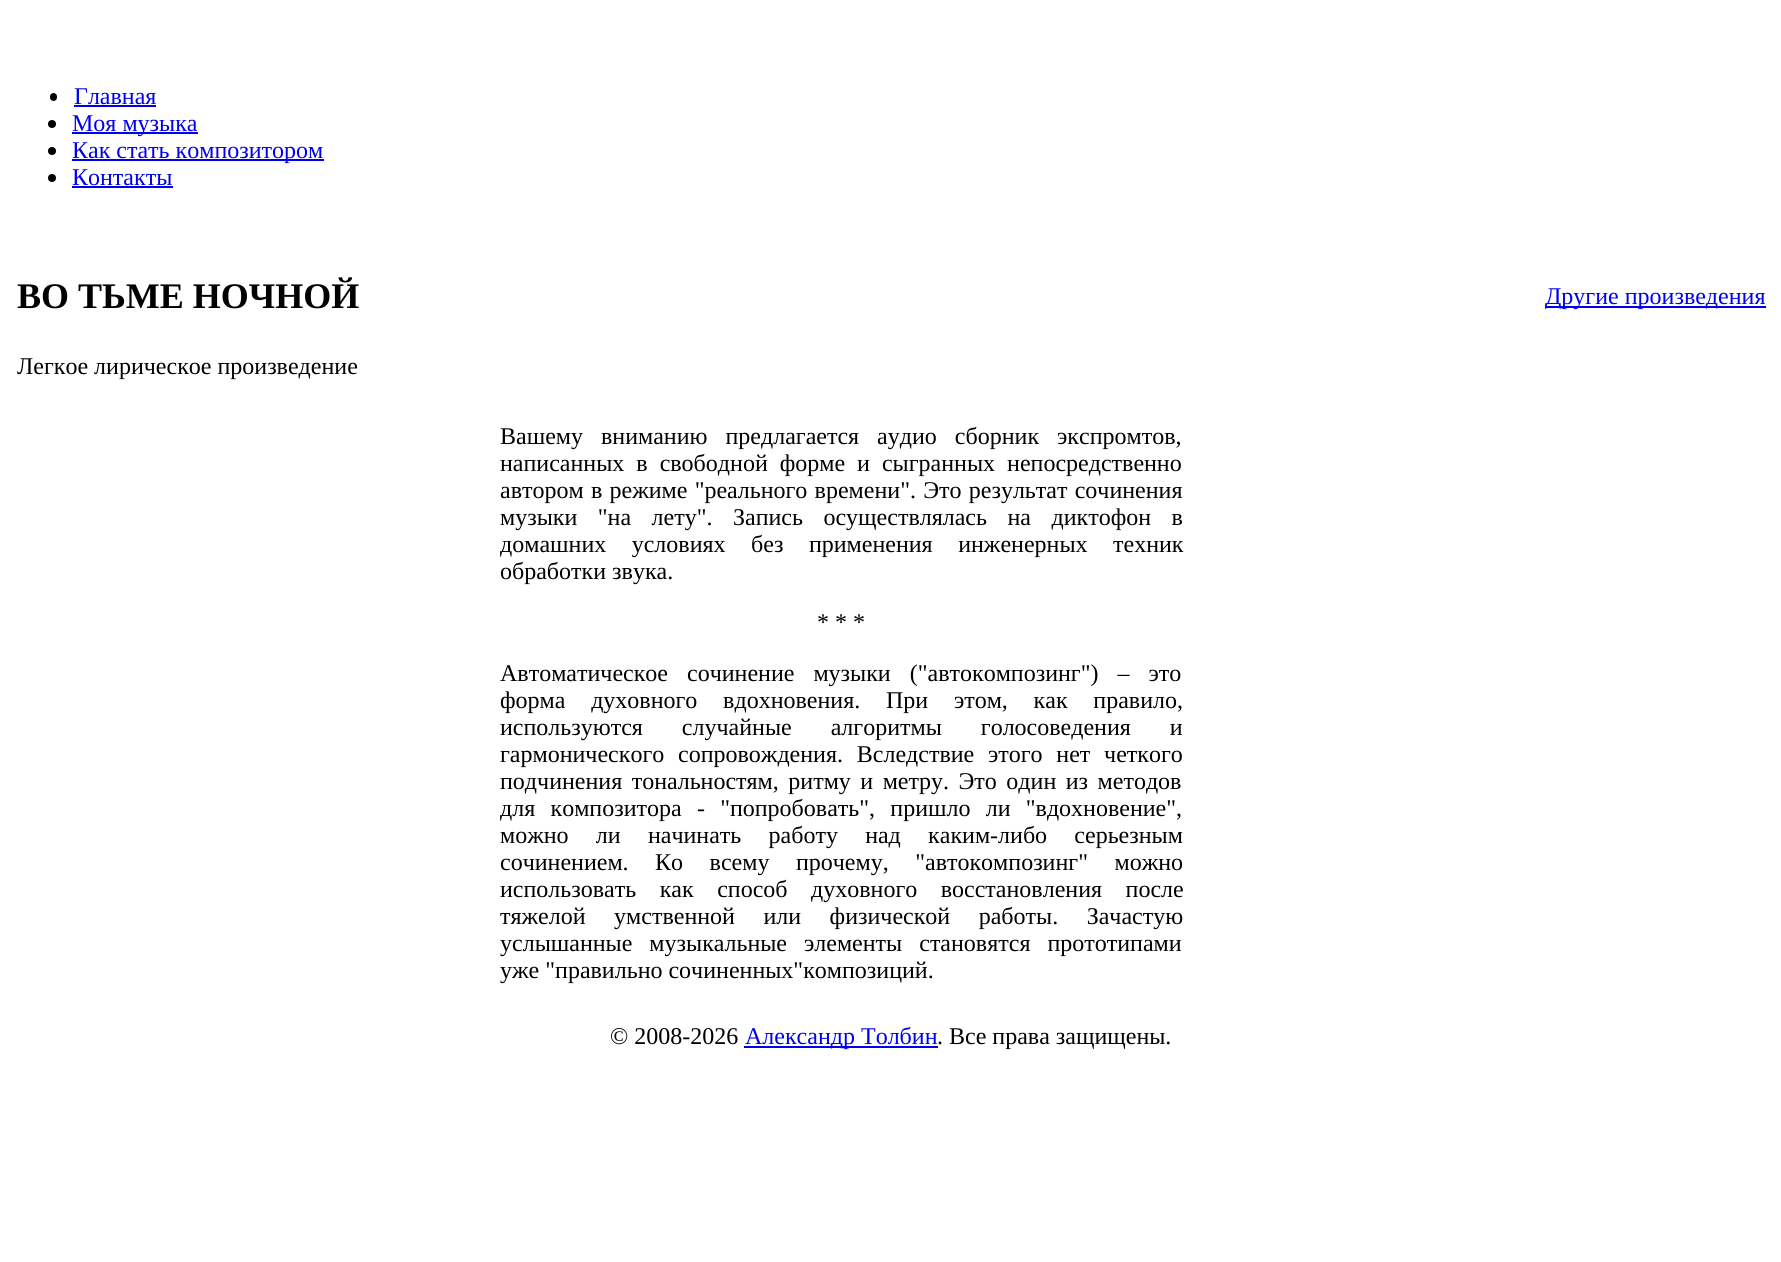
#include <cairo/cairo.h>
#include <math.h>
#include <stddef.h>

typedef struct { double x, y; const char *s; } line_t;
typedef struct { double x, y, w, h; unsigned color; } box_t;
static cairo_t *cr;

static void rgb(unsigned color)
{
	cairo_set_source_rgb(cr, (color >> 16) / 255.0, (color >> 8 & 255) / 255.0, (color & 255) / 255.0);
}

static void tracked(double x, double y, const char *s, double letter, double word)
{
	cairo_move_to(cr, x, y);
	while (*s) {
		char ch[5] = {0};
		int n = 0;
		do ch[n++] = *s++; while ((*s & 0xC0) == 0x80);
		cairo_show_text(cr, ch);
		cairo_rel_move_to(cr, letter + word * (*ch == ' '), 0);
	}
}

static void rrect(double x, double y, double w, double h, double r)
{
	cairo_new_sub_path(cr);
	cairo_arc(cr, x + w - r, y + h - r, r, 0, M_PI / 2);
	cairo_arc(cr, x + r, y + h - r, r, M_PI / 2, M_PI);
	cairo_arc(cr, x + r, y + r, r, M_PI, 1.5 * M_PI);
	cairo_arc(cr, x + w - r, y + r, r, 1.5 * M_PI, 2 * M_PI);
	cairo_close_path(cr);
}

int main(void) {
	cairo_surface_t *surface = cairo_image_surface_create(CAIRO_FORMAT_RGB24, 1781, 1262);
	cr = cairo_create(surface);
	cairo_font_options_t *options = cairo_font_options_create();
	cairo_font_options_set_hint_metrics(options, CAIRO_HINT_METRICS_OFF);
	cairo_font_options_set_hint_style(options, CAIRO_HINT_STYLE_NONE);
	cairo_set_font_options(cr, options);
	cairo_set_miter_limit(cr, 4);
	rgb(0xffffff);
	cairo_paint(cr);
	rgb(0x000000);
	rrect(50, 93, 7, 8, 3.5);
	cairo_fill(cr);
	rgb(0x0000ee);
	cairo_rectangle(cr, 74, 105, 82, 2);
	cairo_fill(cr);
	rgb(0x000000);
	cairo_arc(cr, 52, 124, 4, 0, 2 * M_PI);
	cairo_fill(cr);
	rgb(0x0000ee);
	cairo_rectangle(cr, 72, 132, 126, 2);
	cairo_fill(cr);
	rgb(0x000000);
	cairo_arc(cr, 52, 151, 4, 0, 2 * M_PI);
	cairo_fill(cr);
	rgb(0x0000ee);
	cairo_rectangle(cr, 72, 159, 252, 2);
	cairo_fill(cr);
	rgb(0x000000);
	cairo_arc(cr, 52, 178, 4, 0, 2 * M_PI);
	cairo_fill(cr);
	{
		static const box_t items[] = {
			{72, 186, 101, 2, 0x0000ee},
			{1545, 306, 221, 2, 0x0000ee},
			{744, 1046, 194, 2, 0x0000ee},
		};
		for (size_t i = 0; i < sizeof items / sizeof *items; i++) {
			rgb(items[i].color);
			cairo_rectangle(cr, items[i].x, items[i].y, items[i].w, items[i].h);
			cairo_fill(cr);
		}
	}
	cairo_select_font_face(cr, "Liberation Serif", CAIRO_FONT_SLANT_NORMAL, CAIRO_FONT_WEIGHT_NORMAL);
	cairo_set_font_size(cr, 24);
	{
		static const line_t items[] = {
			{74, 104, "Главная"},
			{72, 131, "Моя музыка"},
			{72, 158, "Как стать композитором"},
			{72, 185, "Контакты"},
		};
		for (size_t i = 0; i < sizeof items / sizeof *items; i++) {
			cairo_move_to(cr, items[i].x, items[i].y);
			cairo_show_text(cr, items[i].s);
		}
	}
	cairo_select_font_face(cr, "Liberation Serif", CAIRO_FONT_SLANT_NORMAL, CAIRO_FONT_WEIGHT_BOLD);
	cairo_set_font_size(cr, 36);
	rgb(0x000000);
	cairo_move_to(cr, 17, 308);
	cairo_show_text(cr, "ВО ТЬМЕ НОЧНОЙ");
	cairo_select_font_face(cr, "Liberation Serif", CAIRO_FONT_SLANT_NORMAL, CAIRO_FONT_WEIGHT_NORMAL);
	cairo_set_font_size(cr, 24);
	rgb(0x0000ee);
	cairo_move_to(cr, 1545, 304);
	cairo_show_text(cr, "Другие произведения");
	rgb(0x000000);
	cairo_move_to(cr, 17, 374);
	cairo_show_text(cr, "Легкое лирическое произведение");
	tracked(500, 444, "Вашему вниманию предлагается аудио сборник экспромтов,", 0, 12);
	tracked(500, 471, "написанных в свободной форме и сыгранных непосредственно", 0, 6);
	tracked(500, 498, "автором в режиме \"реального времени\". Это результат сочинения", 0, 1.25);
	tracked(500, 525, "музыки \"на лету\". Запись осуществлялась на диктофон в", 0, 14.5);
	tracked(500, 552, "домашних условиях без применения инженерных техник", 0, 19.5);
	cairo_move_to(cr, 500, 579);
	cairo_show_text(cr, "обработки звука.");
	cairo_move_to(cr, 817, 630);
	cairo_show_text(cr, "* * *");
	tracked(500, 681, "Автоматическое сочинение музыки (\"автокомпозинг\") – это", 0, 13);
	tracked(500, 708, "форма духовного вдохновения. При этом, как правило,", 0, 19.75);
	tracked(500, 735, "используются случайные алгоритмы голосоведения и", 0, 33);
	tracked(500, 762, "гармонического сопровождения. Вследствие этого нет четкого", 0, 7.75);
	tracked(500, 789, "подчинения тональностям, ритму и метру. Это один из методов", 0, 3.5);
	tracked(500, 816, "для композитора - \"попробовать\", пришло ли \"вдохновение\",", 0, 9.25);
	tracked(500, 843, "можно ли начинать работу над каким-либо серьезным", 0, 21.25);
	tracked(500, 870, "сочинением. Ко всему прочему, \"автокомпозинг\" можно", 0, 20.5);
	tracked(500, 897, "использовать как способ духовного восстановления после", 0, 17.5);
	tracked(500, 924, "тяжелой умственной или физической работы. Зачастую", 0, 22.5);
	tracked(500, 951, "услышанные музыкальные элементы становятся прототипами", 0, 11);
	cairo_move_to(cr, 500, 978);
	cairo_show_text(cr, "уже \"правильно сочиненных\"композиций.");
	cairo_move_to(cr, 610, 1044);
	cairo_show_text(cr, "© 2008-2026");
	rgb(0x0000ee);
	cairo_move_to(cr, 745, 1044);
	cairo_show_text(cr, "Александр Толбин");
	rgb(0x000000);
	cairo_move_to(cr, 937, 1044);
	cairo_show_text(cr, ". Все права защищены.");
	cairo_surface_write_to_png(surface, "page.png");
	cairo_font_options_destroy(options);
	cairo_destroy(cr);
	cairo_surface_destroy(surface);
	return 0;
}
